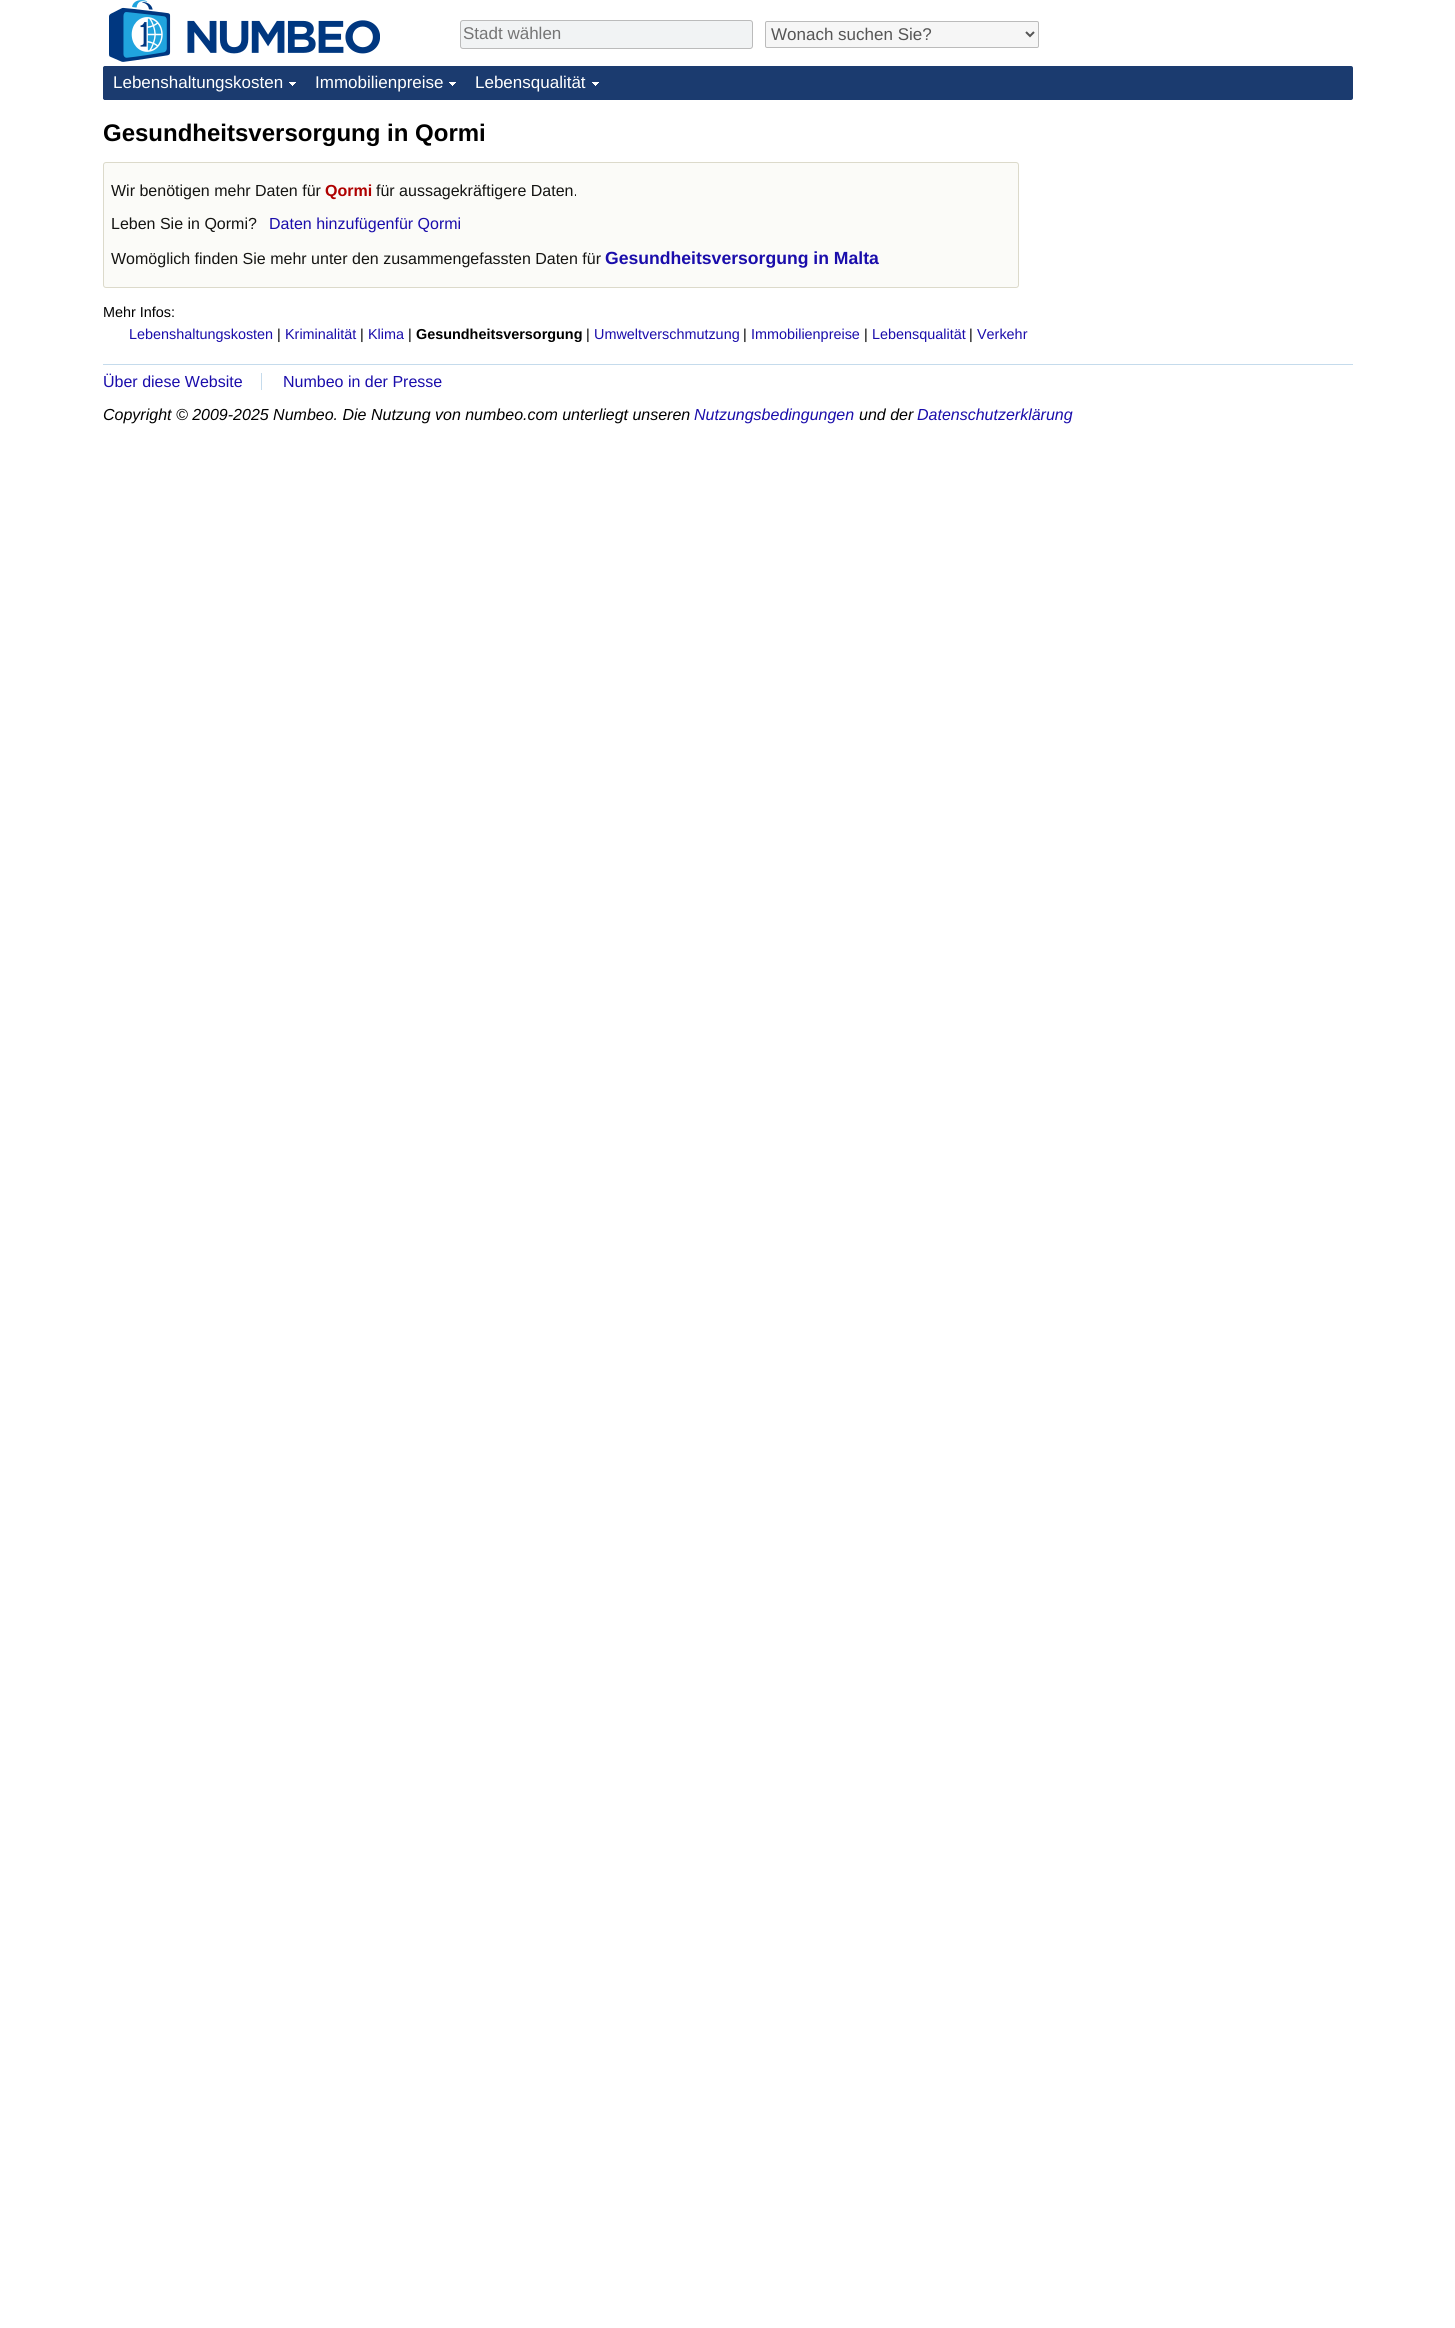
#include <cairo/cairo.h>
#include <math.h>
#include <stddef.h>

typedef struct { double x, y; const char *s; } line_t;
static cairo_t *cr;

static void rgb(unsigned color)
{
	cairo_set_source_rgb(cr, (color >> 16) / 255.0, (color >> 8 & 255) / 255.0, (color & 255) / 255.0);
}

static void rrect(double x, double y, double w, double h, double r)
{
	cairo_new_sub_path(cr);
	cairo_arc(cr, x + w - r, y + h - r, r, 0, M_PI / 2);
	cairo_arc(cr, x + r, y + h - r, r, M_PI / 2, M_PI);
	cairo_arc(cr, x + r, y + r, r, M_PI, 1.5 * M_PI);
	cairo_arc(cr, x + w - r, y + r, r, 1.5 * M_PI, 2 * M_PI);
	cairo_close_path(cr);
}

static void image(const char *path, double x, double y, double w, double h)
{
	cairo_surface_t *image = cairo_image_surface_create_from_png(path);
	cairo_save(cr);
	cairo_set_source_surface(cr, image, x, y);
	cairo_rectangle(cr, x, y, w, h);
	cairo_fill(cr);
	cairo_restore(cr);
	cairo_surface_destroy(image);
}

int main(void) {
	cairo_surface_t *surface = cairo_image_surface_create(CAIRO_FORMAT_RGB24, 1455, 2328);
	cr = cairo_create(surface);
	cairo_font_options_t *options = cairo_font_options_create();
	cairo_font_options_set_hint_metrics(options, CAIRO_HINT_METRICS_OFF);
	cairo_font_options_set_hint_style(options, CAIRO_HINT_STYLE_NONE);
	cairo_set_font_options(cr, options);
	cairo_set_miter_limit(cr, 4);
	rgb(0xffffff);
	cairo_paint(cr);
	image("img/1.png", 109, 0, 62, 62);
	image("img/2.png", 187, 20, 193, 34);
	rgb(0xf1f3f4);
	rrect(460.5, 20.5, 292, 28, 2.5);
	cairo_fill_preserve(cr);
	rgb(0xbbbbbb);
	cairo_set_line_width(cr, 1);
	cairo_stroke(cr);
	rgb(0xf6f6f6);
	rrect(765.5, 21.5, 273, 26, 1.5);
	cairo_fill_preserve(cr);
	rgb(0xbbbbbb);
	cairo_stroke(cr);
	cairo_new_path(cr);
	cairo_move_to(cr, 1026, 32);
	cairo_line_to(cr, 1030, 36);
	cairo_line_to(cr, 1034, 32);
	rgb(0x555555);
	cairo_set_line_width(cr, 2);
	cairo_stroke(cr);
	rgb(0x1b3b6f);
	rrect(103, 66, 1250, 34, 2);
	cairo_fill(cr);
	rrect(103, 66, 202, 34, 3);
	cairo_fill(cr);
	image("img/3.png", 289, 82, 7, 4);
	image("img/3.png", 449, 82, 7, 4);
	image("img/3.png", 592, 82, 7, 4);
	rgb(0xfbfbf8);
	rrect(103.5, 162.5, 915, 125, 2.5);
	cairo_fill_preserve(cr);
	rgb(0xdcdacb);
	cairo_set_line_width(cr, 1);
	cairo_stroke(cr);
	rgb(0xc5dbec);
	cairo_rectangle(cr, 103, 364, 1250, 1);
	cairo_fill(cr);
	cairo_rectangle(cr, 261, 373, 1, 17);
	cairo_fill(cr);
	cairo_select_font_face(cr, "Liberation Sans", CAIRO_FONT_SLANT_NORMAL, CAIRO_FONT_WEIGHT_NORMAL);
	cairo_set_font_size(cr, 17);
	rgb(0x757575);
	cairo_move_to(cr, 463, 39);
	cairo_show_text(cr, "Stadt wählen");
	rgb(0x555555);
	cairo_move_to(cr, 771, 40);
	cairo_show_text(cr, "Wonach suchen Sie?");
	rgb(0xffffff);
	{
		static const line_t items[] = {
			{113, 88, "Lebenshaltungskosten"},
			{315, 88, "Immobilienpreise"},
			{475, 88, "Lebensqualität"},
		};
		for (size_t i = 0; i < sizeof items / sizeof *items; i++) {
			cairo_move_to(cr, items[i].x, items[i].y);
			cairo_show_text(cr, items[i].s);
		}
	}
	cairo_select_font_face(cr, "Liberation Sans", CAIRO_FONT_SLANT_NORMAL, CAIRO_FONT_WEIGHT_BOLD);
	cairo_set_font_size(cr, 24);
	rgb(0x000000);
	cairo_move_to(cr, 103, 141);
	cairo_show_text(cr, "Gesundheitsversorgung in Qormi");
	cairo_select_font_face(cr, "Liberation Sans", CAIRO_FONT_SLANT_NORMAL, CAIRO_FONT_WEIGHT_NORMAL);
	cairo_set_font_size(cr, 16);
	rgb(0x141412);
	cairo_move_to(cr, 111, 196);
	cairo_show_text(cr, "Wir benötigen mehr Daten für");
	cairo_select_font_face(cr, "Liberation Sans", CAIRO_FONT_SLANT_NORMAL, CAIRO_FONT_WEIGHT_BOLD);
	rgb(0xaf0000);
	cairo_move_to(cr, 325, 196);
	cairo_show_text(cr, "Qormi");
	cairo_select_font_face(cr, "Liberation Sans", CAIRO_FONT_SLANT_NORMAL, CAIRO_FONT_WEIGHT_NORMAL);
	rgb(0x141412);
	cairo_move_to(cr, 376, 196);
	cairo_show_text(cr, "für aussagekräftigere Daten.");
	cairo_move_to(cr, 111, 229);
	cairo_show_text(cr, "Leben Sie in Qormi?");
	rgb(0x1a0dab);
	cairo_move_to(cr, 269, 229);
	cairo_show_text(cr, "Daten hinzufügenfür Qormi");
	rgb(0x141412);
	cairo_move_to(cr, 111, 264);
	cairo_show_text(cr, "Womöglich finden Sie mehr unter den zusammengefassten Daten für");
	cairo_select_font_face(cr, "Liberation Sans", CAIRO_FONT_SLANT_NORMAL, CAIRO_FONT_WEIGHT_BOLD);
	cairo_set_font_size(cr, 17.6);
	rgb(0x1a0dab);
	cairo_move_to(cr, 605, 264);
	cairo_show_text(cr, "Gesundheitsversorgung in Malta");
	cairo_select_font_face(cr, "Liberation Sans", CAIRO_FONT_SLANT_NORMAL, CAIRO_FONT_WEIGHT_NORMAL);
	cairo_set_font_size(cr, 14.4);
	rgb(0x000000);
	cairo_move_to(cr, 103, 317);
	cairo_show_text(cr, "Mehr Infos:");
	rgb(0x1a0dab);
	cairo_move_to(cr, 129, 339);
	cairo_show_text(cr, "Lebenshaltungskosten");
	rgb(0x000000);
	cairo_move_to(cr, 277, 339);
	cairo_show_text(cr, "|");
	rgb(0x1a0dab);
	cairo_move_to(cr, 285, 339);
	cairo_show_text(cr, "Kriminalität");
	rgb(0x000000);
	cairo_move_to(cr, 360, 339);
	cairo_show_text(cr, "|");
	rgb(0x1a0dab);
	cairo_move_to(cr, 368, 339);
	cairo_show_text(cr, "Klima");
	rgb(0x000000);
	cairo_move_to(cr, 408, 339);
	cairo_show_text(cr, "|");
	cairo_select_font_face(cr, "Liberation Sans", CAIRO_FONT_SLANT_NORMAL, CAIRO_FONT_WEIGHT_BOLD);
	cairo_move_to(cr, 416, 339);
	cairo_show_text(cr, "Gesundheitsversorgung");
	cairo_select_font_face(cr, "Liberation Sans", CAIRO_FONT_SLANT_NORMAL, CAIRO_FONT_WEIGHT_NORMAL);
	cairo_move_to(cr, 586, 339);
	cairo_show_text(cr, "|");
	rgb(0x1a0dab);
	cairo_move_to(cr, 594, 339);
	cairo_show_text(cr, "Umweltverschmutzung");
	rgb(0x000000);
	cairo_move_to(cr, 743, 339);
	cairo_show_text(cr, "|");
	rgb(0x1a0dab);
	cairo_move_to(cr, 751, 339);
	cairo_show_text(cr, "Immobilienpreise");
	rgb(0x000000);
	cairo_move_to(cr, 864, 339);
	cairo_show_text(cr, "|");
	rgb(0x1a0dab);
	cairo_move_to(cr, 872, 339);
	cairo_show_text(cr, "Lebensqualität");
	rgb(0x000000);
	cairo_move_to(cr, 969, 339);
	cairo_show_text(cr, "|");
	rgb(0x1a0dab);
	cairo_move_to(cr, 977, 339);
	cairo_show_text(cr, "Verkehr");
	cairo_set_font_size(cr, 16);
	cairo_move_to(cr, 103, 387);
	cairo_show_text(cr, "Über diese Website");
	cairo_move_to(cr, 283, 387);
	cairo_show_text(cr, "Numbeo in der Presse");
	cairo_select_font_face(cr, "Liberation Sans", CAIRO_FONT_SLANT_ITALIC, CAIRO_FONT_WEIGHT_NORMAL);
	rgb(0x000000);
	cairo_move_to(cr, 103, 420);
	cairo_show_text(cr, "Copyright © 2009-2025 Numbeo. Die Nutzung von numbeo.com unterliegt unseren");
	rgb(0x1a0dab);
	cairo_move_to(cr, 694, 420);
	cairo_show_text(cr, "Nutzungsbedingungen");
	rgb(0x000000);
	cairo_move_to(cr, 859, 420);
	cairo_show_text(cr, "und der");
	rgb(0x1a0dab);
	cairo_move_to(cr, 917, 420);
	cairo_show_text(cr, "Datenschutzerklärung");
	cairo_surface_write_to_png(surface, "page.png");
	cairo_font_options_destroy(options);
	cairo_destroy(cr);
	cairo_surface_destroy(surface);
	return 0;
}
